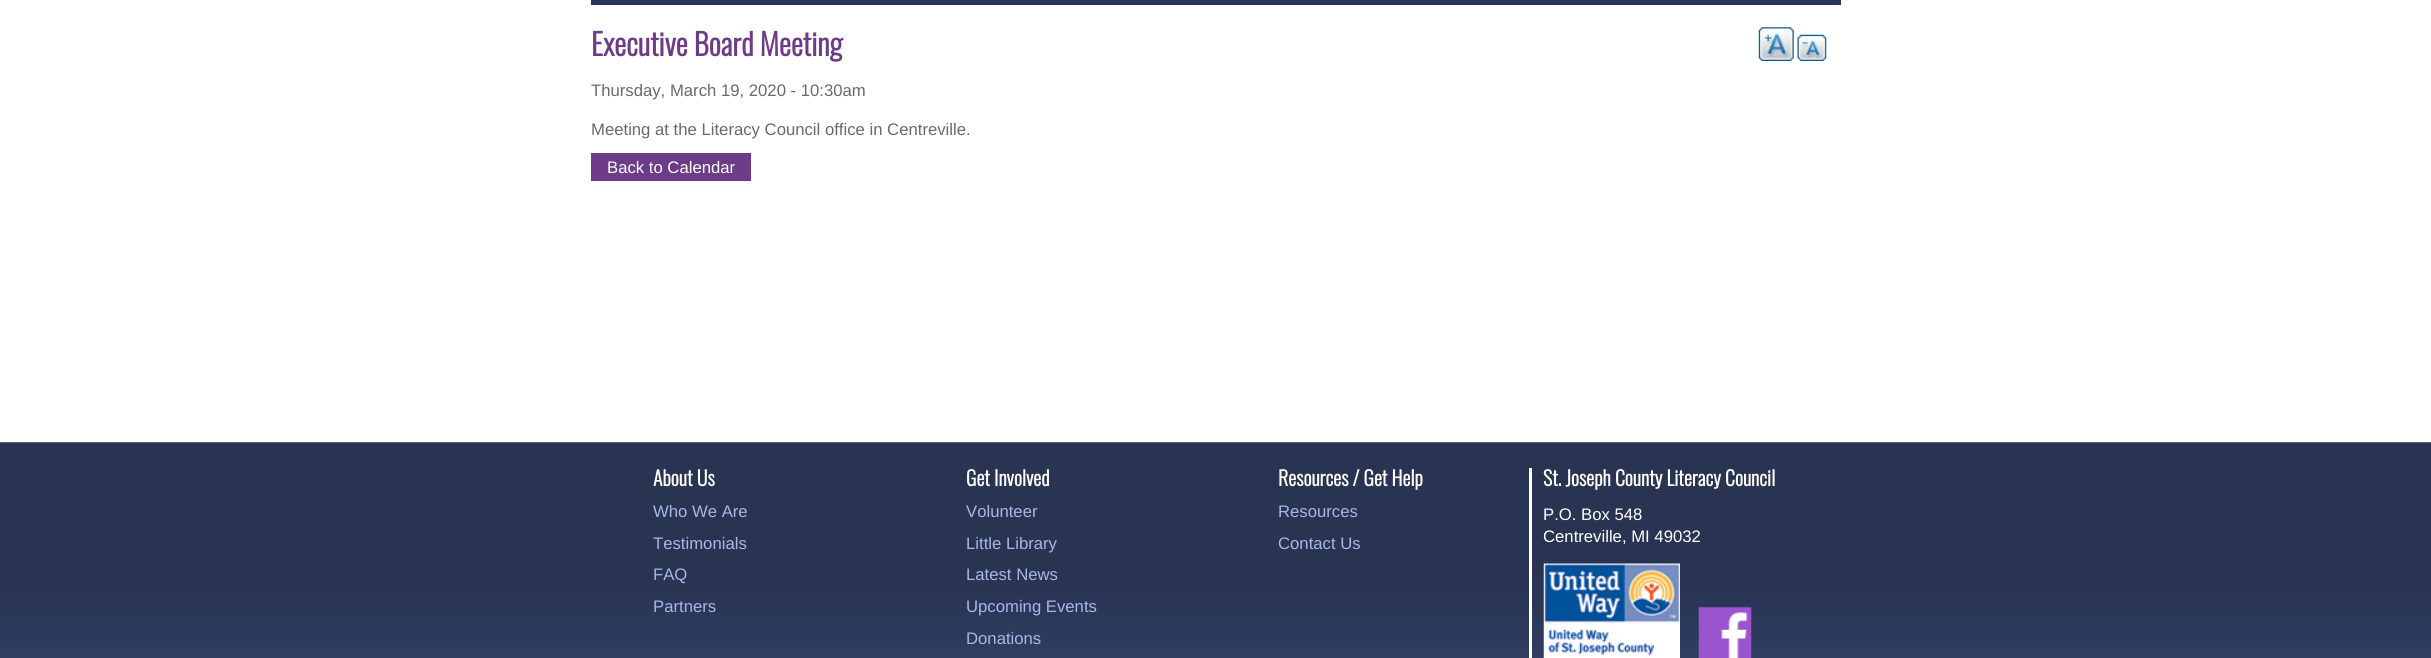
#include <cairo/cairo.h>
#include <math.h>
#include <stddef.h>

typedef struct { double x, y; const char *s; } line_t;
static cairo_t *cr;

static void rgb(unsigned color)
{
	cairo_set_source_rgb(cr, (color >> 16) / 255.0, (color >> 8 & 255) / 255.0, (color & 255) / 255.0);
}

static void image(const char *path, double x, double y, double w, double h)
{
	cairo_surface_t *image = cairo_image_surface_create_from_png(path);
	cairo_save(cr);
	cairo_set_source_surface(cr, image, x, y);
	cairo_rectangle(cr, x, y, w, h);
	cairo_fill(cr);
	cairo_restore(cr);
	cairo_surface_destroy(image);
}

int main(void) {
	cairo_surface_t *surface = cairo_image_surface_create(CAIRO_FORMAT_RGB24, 2431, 658);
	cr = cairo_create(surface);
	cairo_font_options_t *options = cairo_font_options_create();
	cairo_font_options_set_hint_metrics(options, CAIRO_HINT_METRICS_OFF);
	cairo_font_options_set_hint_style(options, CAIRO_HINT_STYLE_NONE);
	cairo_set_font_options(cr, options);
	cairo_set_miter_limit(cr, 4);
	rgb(0xffffff);
	cairo_paint(cr);
	rgb(0x283458);
	cairo_rectangle(cr, 591, 0, 1250, 5);
	cairo_fill(cr);
	image("img/1.png", 1758, 27, 36, 34);
	image("img/2.png", 1797, 34, 30, 27);
	rgb(0x6d3b87);
	cairo_rectangle(cr, 591, 153, 160, 28);
	cairo_fill(cr);
	image("img/3.png", 0, 442, 2431, 216);
	rgb(0xffffff);
	cairo_rectangle(cr, 1529, 468, 3, 190);
	cairo_fill(cr);
	image("img/4.png", 1543, 563, 137, 95);
	image("img/5.png", 1698, 607, 54, 51);
	cairo_select_font_face(cr, "Oswald", CAIRO_FONT_SLANT_NORMAL, CAIRO_FONT_WEIGHT_BOLD);
	cairo_set_font_size(cr, 30);
	rgb(0x6d3b87);
	cairo_move_to(cr, 591, 56);
	cairo_show_text(cr, "Executive Board Meeting");
	cairo_select_font_face(cr, "Liberation Sans", CAIRO_FONT_SLANT_NORMAL, CAIRO_FONT_WEIGHT_NORMAL);
	cairo_set_font_size(cr, 16.7);
	rgb(0x696969);
	cairo_move_to(cr, 591, 96);
	cairo_show_text(cr, "Thursday, March 19, 2020 - 10:30am");
	cairo_move_to(cr, 591, 135);
	cairo_show_text(cr, "Meeting at the Literacy Council office in Centreville.");
	rgb(0xffffff);
	cairo_move_to(cr, 607, 173);
	cairo_show_text(cr, "Back to Calendar");
	cairo_select_font_face(cr, "Oswald", CAIRO_FONT_SLANT_NORMAL, CAIRO_FONT_WEIGHT_BOLD);
	cairo_set_font_size(cr, 20);
	cairo_move_to(cr, 653, 486);
	cairo_show_text(cr, "About Us");
	cairo_select_font_face(cr, "Liberation Sans", CAIRO_FONT_SLANT_NORMAL, CAIRO_FONT_WEIGHT_NORMAL);
	cairo_set_font_size(cr, 16.7);
	rgb(0xa6b8e8);
	{
		static const line_t items[] = {
			{653, 517, "Who We Are"},
			{653, 549, "Testimonials"},
			{653, 580, "FAQ"},
			{653, 612, "Partners"},
		};
		for (size_t i = 0; i < sizeof items / sizeof *items; i++) {
			cairo_move_to(cr, items[i].x, items[i].y);
			cairo_show_text(cr, items[i].s);
		}
	}
	cairo_select_font_face(cr, "Oswald", CAIRO_FONT_SLANT_NORMAL, CAIRO_FONT_WEIGHT_BOLD);
	cairo_set_font_size(cr, 20);
	rgb(0xffffff);
	cairo_move_to(cr, 966, 486);
	cairo_show_text(cr, "Get Involved");
	cairo_select_font_face(cr, "Liberation Sans", CAIRO_FONT_SLANT_NORMAL, CAIRO_FONT_WEIGHT_NORMAL);
	cairo_set_font_size(cr, 16.7);
	rgb(0xa6b8e8);
	{
		static const line_t items[] = {
			{966, 517, "Volunteer"},
			{966, 549, "Little Library"},
			{966, 580, "Latest News"},
			{966, 612, "Upcoming Events"},
			{966, 644, "Donations"},
		};
		for (size_t i = 0; i < sizeof items / sizeof *items; i++) {
			cairo_move_to(cr, items[i].x, items[i].y);
			cairo_show_text(cr, items[i].s);
		}
	}
	cairo_select_font_face(cr, "Oswald", CAIRO_FONT_SLANT_NORMAL, CAIRO_FONT_WEIGHT_BOLD);
	cairo_set_font_size(cr, 20);
	rgb(0xffffff);
	cairo_move_to(cr, 1278, 486);
	cairo_show_text(cr, "Resources / Get Help");
	cairo_select_font_face(cr, "Liberation Sans", CAIRO_FONT_SLANT_NORMAL, CAIRO_FONT_WEIGHT_NORMAL);
	cairo_set_font_size(cr, 16.7);
	rgb(0xa6b8e8);
	cairo_move_to(cr, 1278, 517);
	cairo_show_text(cr, "Resources");
	cairo_move_to(cr, 1278, 549);
	cairo_show_text(cr, "Contact Us");
	cairo_select_font_face(cr, "Oswald", CAIRO_FONT_SLANT_NORMAL, CAIRO_FONT_WEIGHT_BOLD);
	cairo_set_font_size(cr, 20);
	rgb(0xffffff);
	cairo_move_to(cr, 1543, 486);
	cairo_show_text(cr, "St. Joseph County Literacy Council");
	cairo_select_font_face(cr, "Liberation Sans", CAIRO_FONT_SLANT_NORMAL, CAIRO_FONT_WEIGHT_NORMAL);
	cairo_set_font_size(cr, 16.7);
	cairo_move_to(cr, 1543, 520);
	cairo_show_text(cr, "P.O. Box 548");
	cairo_move_to(cr, 1543, 542);
	cairo_show_text(cr, "Centreville, MI 49032");
	cairo_surface_write_to_png(surface, "page.png");
	cairo_font_options_destroy(options);
	cairo_destroy(cr);
	cairo_surface_destroy(surface);
	return 0;
}
